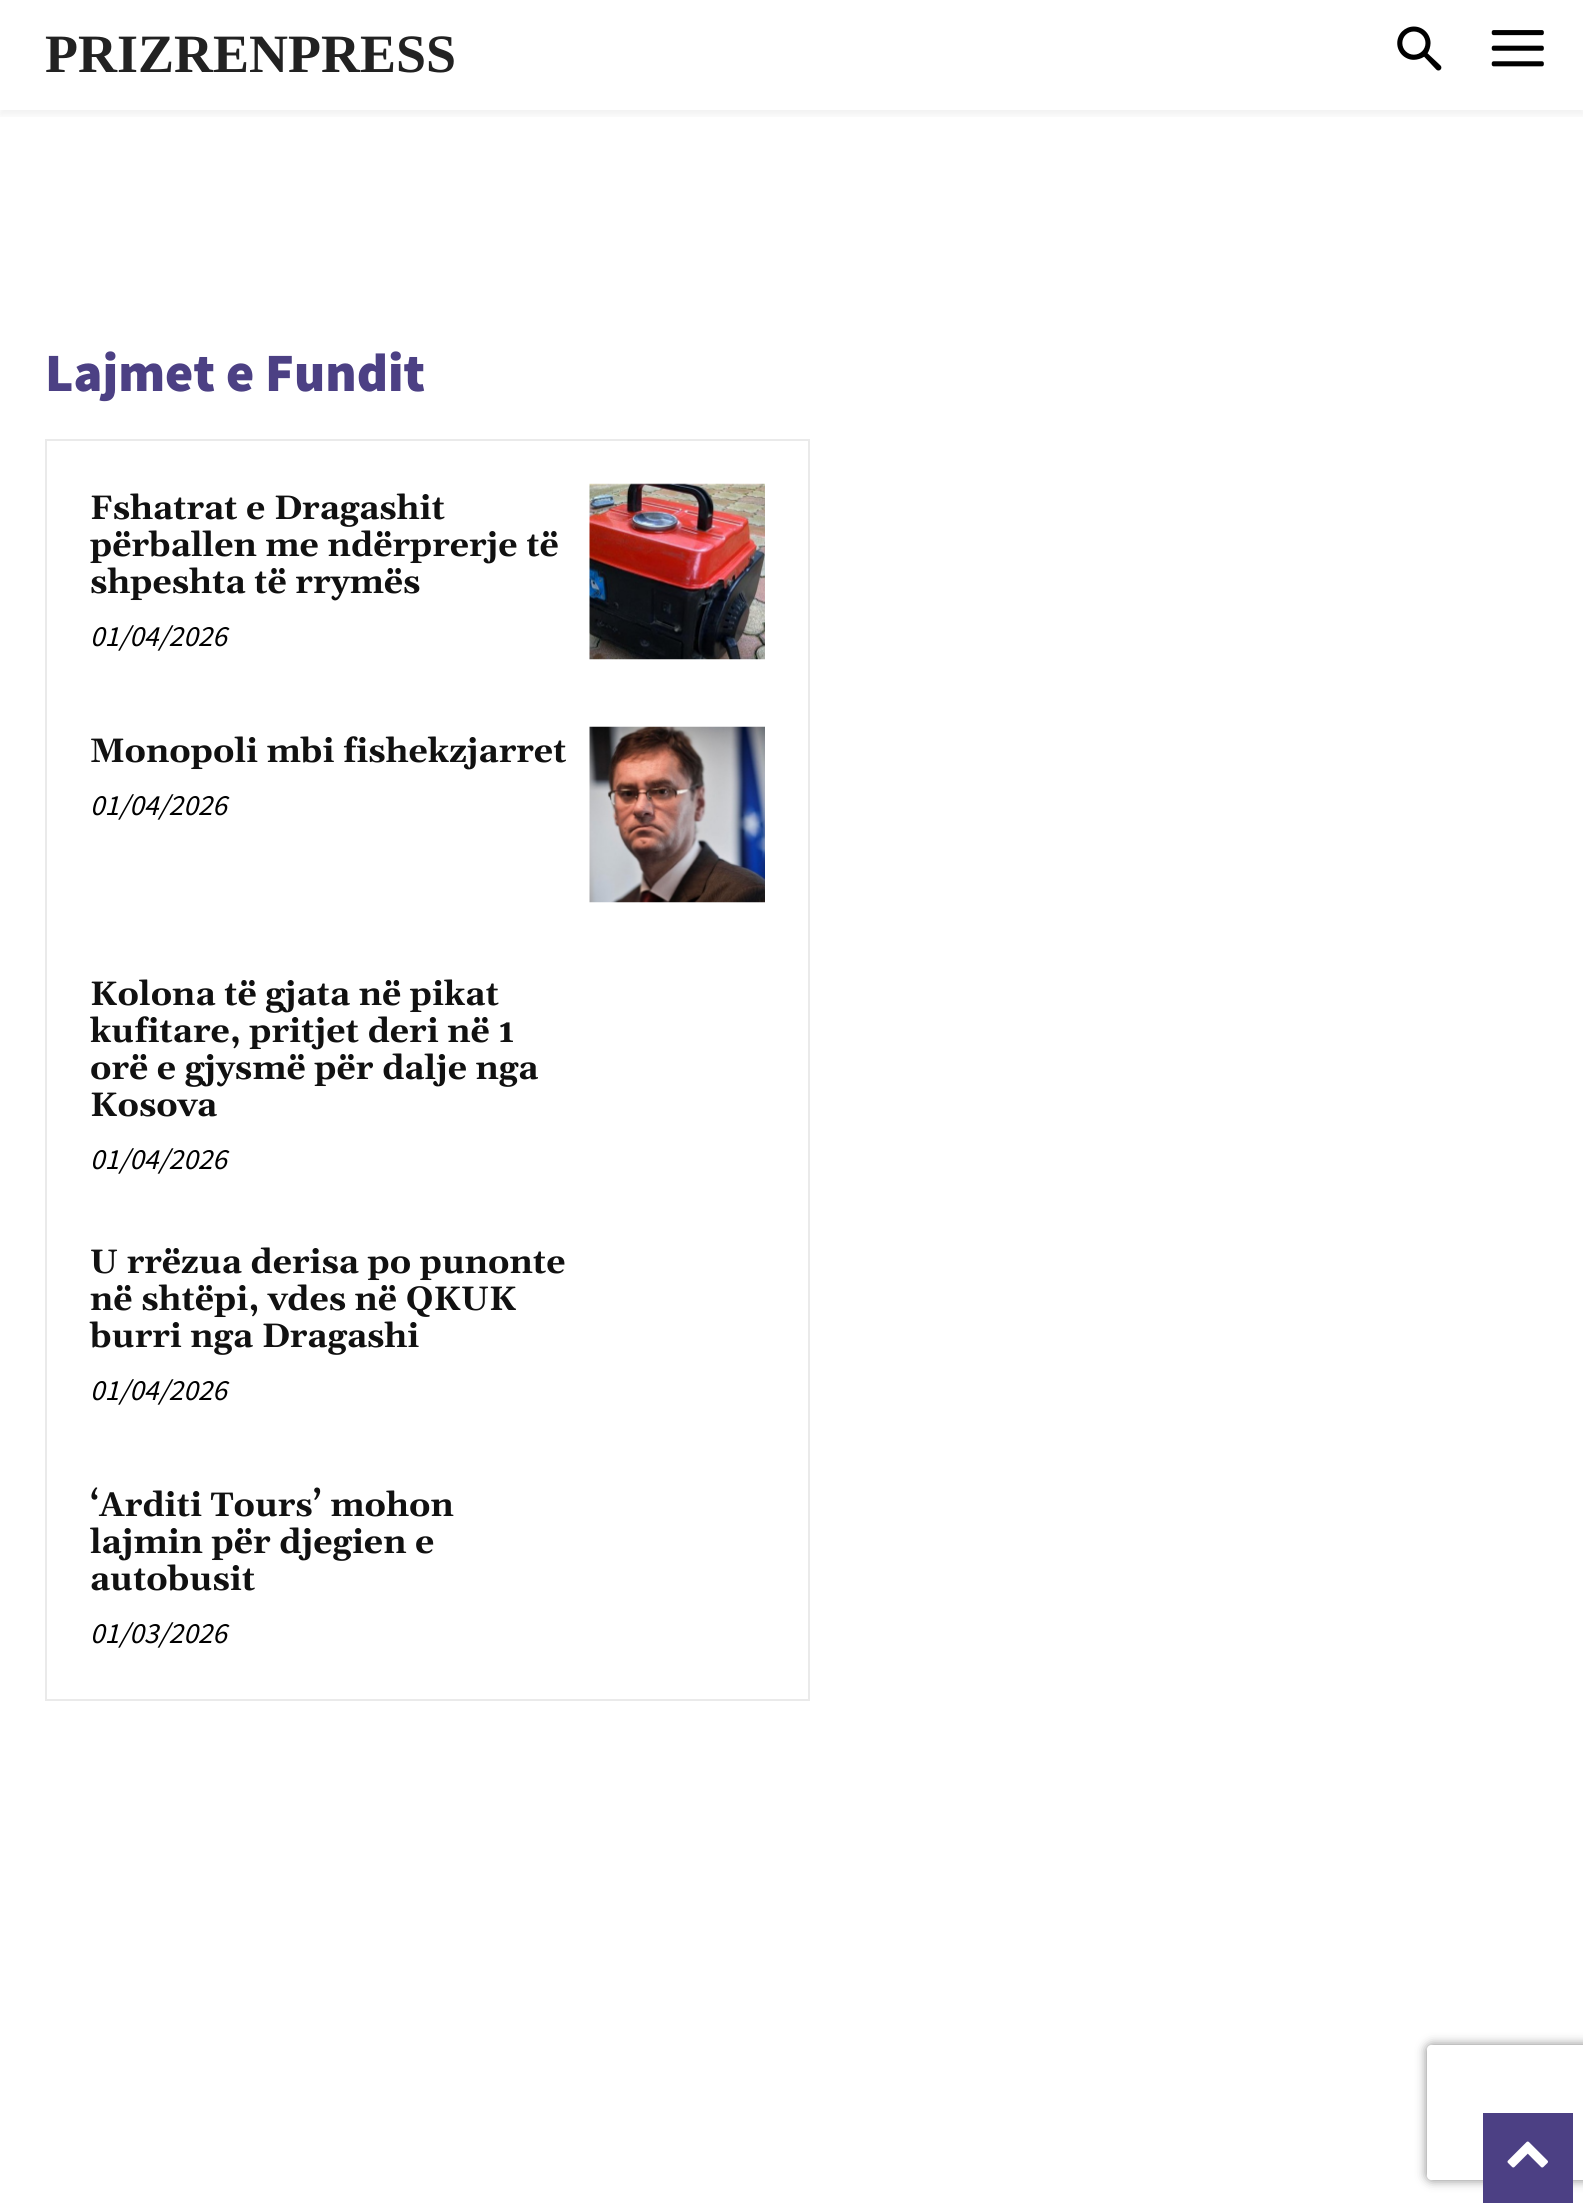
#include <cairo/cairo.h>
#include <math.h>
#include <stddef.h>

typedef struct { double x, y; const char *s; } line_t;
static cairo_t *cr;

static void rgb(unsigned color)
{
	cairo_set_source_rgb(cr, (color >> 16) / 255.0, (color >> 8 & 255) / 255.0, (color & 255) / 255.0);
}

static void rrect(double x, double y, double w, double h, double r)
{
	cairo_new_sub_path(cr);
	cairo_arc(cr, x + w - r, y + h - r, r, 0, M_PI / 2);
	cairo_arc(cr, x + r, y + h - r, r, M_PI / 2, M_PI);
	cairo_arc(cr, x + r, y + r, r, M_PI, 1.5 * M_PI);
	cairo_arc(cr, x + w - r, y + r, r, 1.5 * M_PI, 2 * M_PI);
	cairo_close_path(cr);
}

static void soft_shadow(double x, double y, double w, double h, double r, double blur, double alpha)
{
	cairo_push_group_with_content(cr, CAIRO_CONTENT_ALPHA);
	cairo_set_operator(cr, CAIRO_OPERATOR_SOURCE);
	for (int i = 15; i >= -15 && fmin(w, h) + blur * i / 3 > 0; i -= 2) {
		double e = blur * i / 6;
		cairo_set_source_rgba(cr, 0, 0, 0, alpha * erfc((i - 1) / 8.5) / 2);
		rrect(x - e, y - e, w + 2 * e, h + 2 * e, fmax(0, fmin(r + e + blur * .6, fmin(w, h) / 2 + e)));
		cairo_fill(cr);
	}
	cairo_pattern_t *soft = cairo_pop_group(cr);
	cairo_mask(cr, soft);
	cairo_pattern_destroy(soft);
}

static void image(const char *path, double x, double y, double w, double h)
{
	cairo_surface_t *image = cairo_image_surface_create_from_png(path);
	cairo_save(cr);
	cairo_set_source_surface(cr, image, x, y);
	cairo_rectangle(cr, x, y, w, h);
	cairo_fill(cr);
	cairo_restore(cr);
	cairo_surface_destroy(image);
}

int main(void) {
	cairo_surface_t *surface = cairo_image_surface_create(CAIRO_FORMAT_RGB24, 1583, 2211);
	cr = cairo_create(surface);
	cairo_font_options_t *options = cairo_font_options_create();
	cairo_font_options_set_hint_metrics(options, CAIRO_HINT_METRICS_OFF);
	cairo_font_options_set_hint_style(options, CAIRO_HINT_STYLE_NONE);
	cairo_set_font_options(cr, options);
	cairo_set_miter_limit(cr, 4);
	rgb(0xffffff);
	cairo_paint(cr);
	image("img/1.png", 1397, 26, 45, 45);
	image("img/2.png", 1491, 30, 53, 37);
	cairo_save(cr);
	cairo_rectangle(cr, 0, 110, 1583, 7);
	cairo_clip(cr);
	rgb(0x000000);
	soft_shadow(0, 5, 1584, 110, 0, 4.5, 0.06);
	cairo_restore(cr);
	cairo_rectangle(cr, 46, 440, 763, 1260);
	rgb(0xeaeaea);
	cairo_stroke(cr);
	image("img/3.png", 589, 483, 176, 177);
	image("img/4.png", 589, 726, 176, 177);
	cairo_save(cr);
	cairo_set_fill_rule(cr, CAIRO_FILL_RULE_EVEN_ODD);
	cairo_new_path(cr);
	cairo_move_to(cr, 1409, 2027);
	cairo_line_to(cr, 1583, 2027);
	cairo_line_to(cr, 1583, 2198);
	cairo_line_to(cr, 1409, 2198);
	cairo_close_path(cr);
	cairo_move_to(cr, 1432, 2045);
	cairo_line_to(cr, 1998, 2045);
	cairo_curve_to(cr, 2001, 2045, 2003, 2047, 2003, 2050);
	cairo_line_to(cr, 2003, 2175);
	cairo_curve_to(cr, 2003, 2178, 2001, 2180, 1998, 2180);
	cairo_line_to(cr, 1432, 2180);
	cairo_curve_to(cr, 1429, 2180, 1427, 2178, 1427, 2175);
	cairo_line_to(cr, 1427, 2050);
	cairo_curve_to(cr, 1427, 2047, 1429, 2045, 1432, 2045);
	cairo_close_path(cr);
	cairo_clip(cr);
	rgb(0x808080);
	soft_shadow(1427, 2045, 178, 135, 5, 5.5, 1);
	cairo_restore(cr);
	rgb(0x4c4084);
	cairo_rectangle(cr, 1483, 2113, 90, 90);
	cairo_fill(cr);
	image("img/5.png", 1507, 2141, 41, 27);
	cairo_select_font_face(cr, "Liberation Serif", CAIRO_FONT_SLANT_NORMAL, CAIRO_FONT_WEIGHT_BOLD);
	cairo_set_font_size(cr, 54);
	rgb(0x222222);
	cairo_move_to(cr, 45, 72);
	cairo_show_text(cr, "PRIZRENPRESS");
	cairo_select_font_face(cr, "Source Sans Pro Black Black", CAIRO_FONT_SLANT_NORMAL, CAIRO_FONT_WEIGHT_NORMAL);
	rgb(0x4c4084);
	cairo_move_to(cr, 45, 391);
	cairo_show_text(cr, "Lajmet e Fundit");
	cairo_select_font_face(cr, "Gelasio", CAIRO_FONT_SLANT_NORMAL, CAIRO_FONT_WEIGHT_BOLD);
	cairo_set_font_size(cr, 33.75);
	rgb(0x111111);
	{
		static const line_t items[] = {
			{90, 519, "Fshatrat e Dragashit"},
			{90, 556, "përballen me ndërprerje të"},
			{90, 593, "shpeshta të rrymës"},
		};
		for (size_t i = 0; i < sizeof items / sizeof *items; i++) {
			cairo_move_to(cr, items[i].x, items[i].y);
			cairo_show_text(cr, items[i].s);
		}
	}
	cairo_select_font_face(cr, "Source Sans Pro", CAIRO_FONT_SLANT_ITALIC, CAIRO_FONT_WEIGHT_NORMAL);
	cairo_set_font_size(cr, 29.25);
	rgb(0x000000);
	cairo_move_to(cr, 90, 646);
	cairo_show_text(cr, "01/04/2026");
	cairo_select_font_face(cr, "Gelasio", CAIRO_FONT_SLANT_NORMAL, CAIRO_FONT_WEIGHT_BOLD);
	cairo_set_font_size(cr, 33.75);
	rgb(0x111111);
	cairo_move_to(cr, 90, 762);
	cairo_show_text(cr, "Monopoli mbi fishekzjarret");
	cairo_select_font_face(cr, "Source Sans Pro", CAIRO_FONT_SLANT_ITALIC, CAIRO_FONT_WEIGHT_NORMAL);
	cairo_set_font_size(cr, 29.25);
	rgb(0x000000);
	cairo_move_to(cr, 90, 815);
	cairo_show_text(cr, "01/04/2026");
	cairo_select_font_face(cr, "Gelasio", CAIRO_FONT_SLANT_NORMAL, CAIRO_FONT_WEIGHT_BOLD);
	cairo_set_font_size(cr, 33.75);
	rgb(0x111111);
	{
		static const line_t items[] = {
			{90, 1005, "Kolona të gjata në pikat"},
			{90, 1042, "kufitare, pritjet deri në 1"},
			{90, 1079, "orë e gjysmë për dalje nga"},
			{90, 1116, "Kosova"},
		};
		for (size_t i = 0; i < sizeof items / sizeof *items; i++) {
			cairo_move_to(cr, items[i].x, items[i].y);
			cairo_show_text(cr, items[i].s);
		}
	}
	cairo_select_font_face(cr, "Source Sans Pro", CAIRO_FONT_SLANT_ITALIC, CAIRO_FONT_WEIGHT_NORMAL);
	cairo_set_font_size(cr, 29.25);
	rgb(0x000000);
	cairo_move_to(cr, 90, 1169);
	cairo_show_text(cr, "01/04/2026");
	cairo_select_font_face(cr, "Gelasio", CAIRO_FONT_SLANT_NORMAL, CAIRO_FONT_WEIGHT_BOLD);
	cairo_set_font_size(cr, 33.75);
	rgb(0x111111);
	{
		static const line_t items[] = {
			{90, 1273, "U rrëzua derisa po punonte"},
			{90, 1310, "në shtëpi, vdes në QKUK"},
			{90, 1347, "burri nga Dragashi"},
		};
		for (size_t i = 0; i < sizeof items / sizeof *items; i++) {
			cairo_move_to(cr, items[i].x, items[i].y);
			cairo_show_text(cr, items[i].s);
		}
	}
	cairo_select_font_face(cr, "Source Sans Pro", CAIRO_FONT_SLANT_ITALIC, CAIRO_FONT_WEIGHT_NORMAL);
	cairo_set_font_size(cr, 29.25);
	rgb(0x000000);
	cairo_move_to(cr, 90, 1400);
	cairo_show_text(cr, "01/04/2026");
	cairo_select_font_face(cr, "Gelasio", CAIRO_FONT_SLANT_NORMAL, CAIRO_FONT_WEIGHT_BOLD);
	cairo_set_font_size(cr, 33.75);
	rgb(0x111111);
	{
		static const line_t items[] = {
			{90, 1516, "‘Arditi Tours’ mohon"},
			{90, 1553, "lajmin për djegien e"},
			{90, 1590, "autobusit"},
		};
		for (size_t i = 0; i < sizeof items / sizeof *items; i++) {
			cairo_move_to(cr, items[i].x, items[i].y);
			cairo_show_text(cr, items[i].s);
		}
	}
	cairo_select_font_face(cr, "Source Sans Pro", CAIRO_FONT_SLANT_ITALIC, CAIRO_FONT_WEIGHT_NORMAL);
	cairo_set_font_size(cr, 29.25);
	rgb(0x000000);
	cairo_move_to(cr, 90, 1643);
	cairo_show_text(cr, "01/03/2026");
	cairo_surface_write_to_png(surface, "page.png");
	cairo_font_options_destroy(options);
	cairo_destroy(cr);
	cairo_surface_destroy(surface);
	return 0;
}
